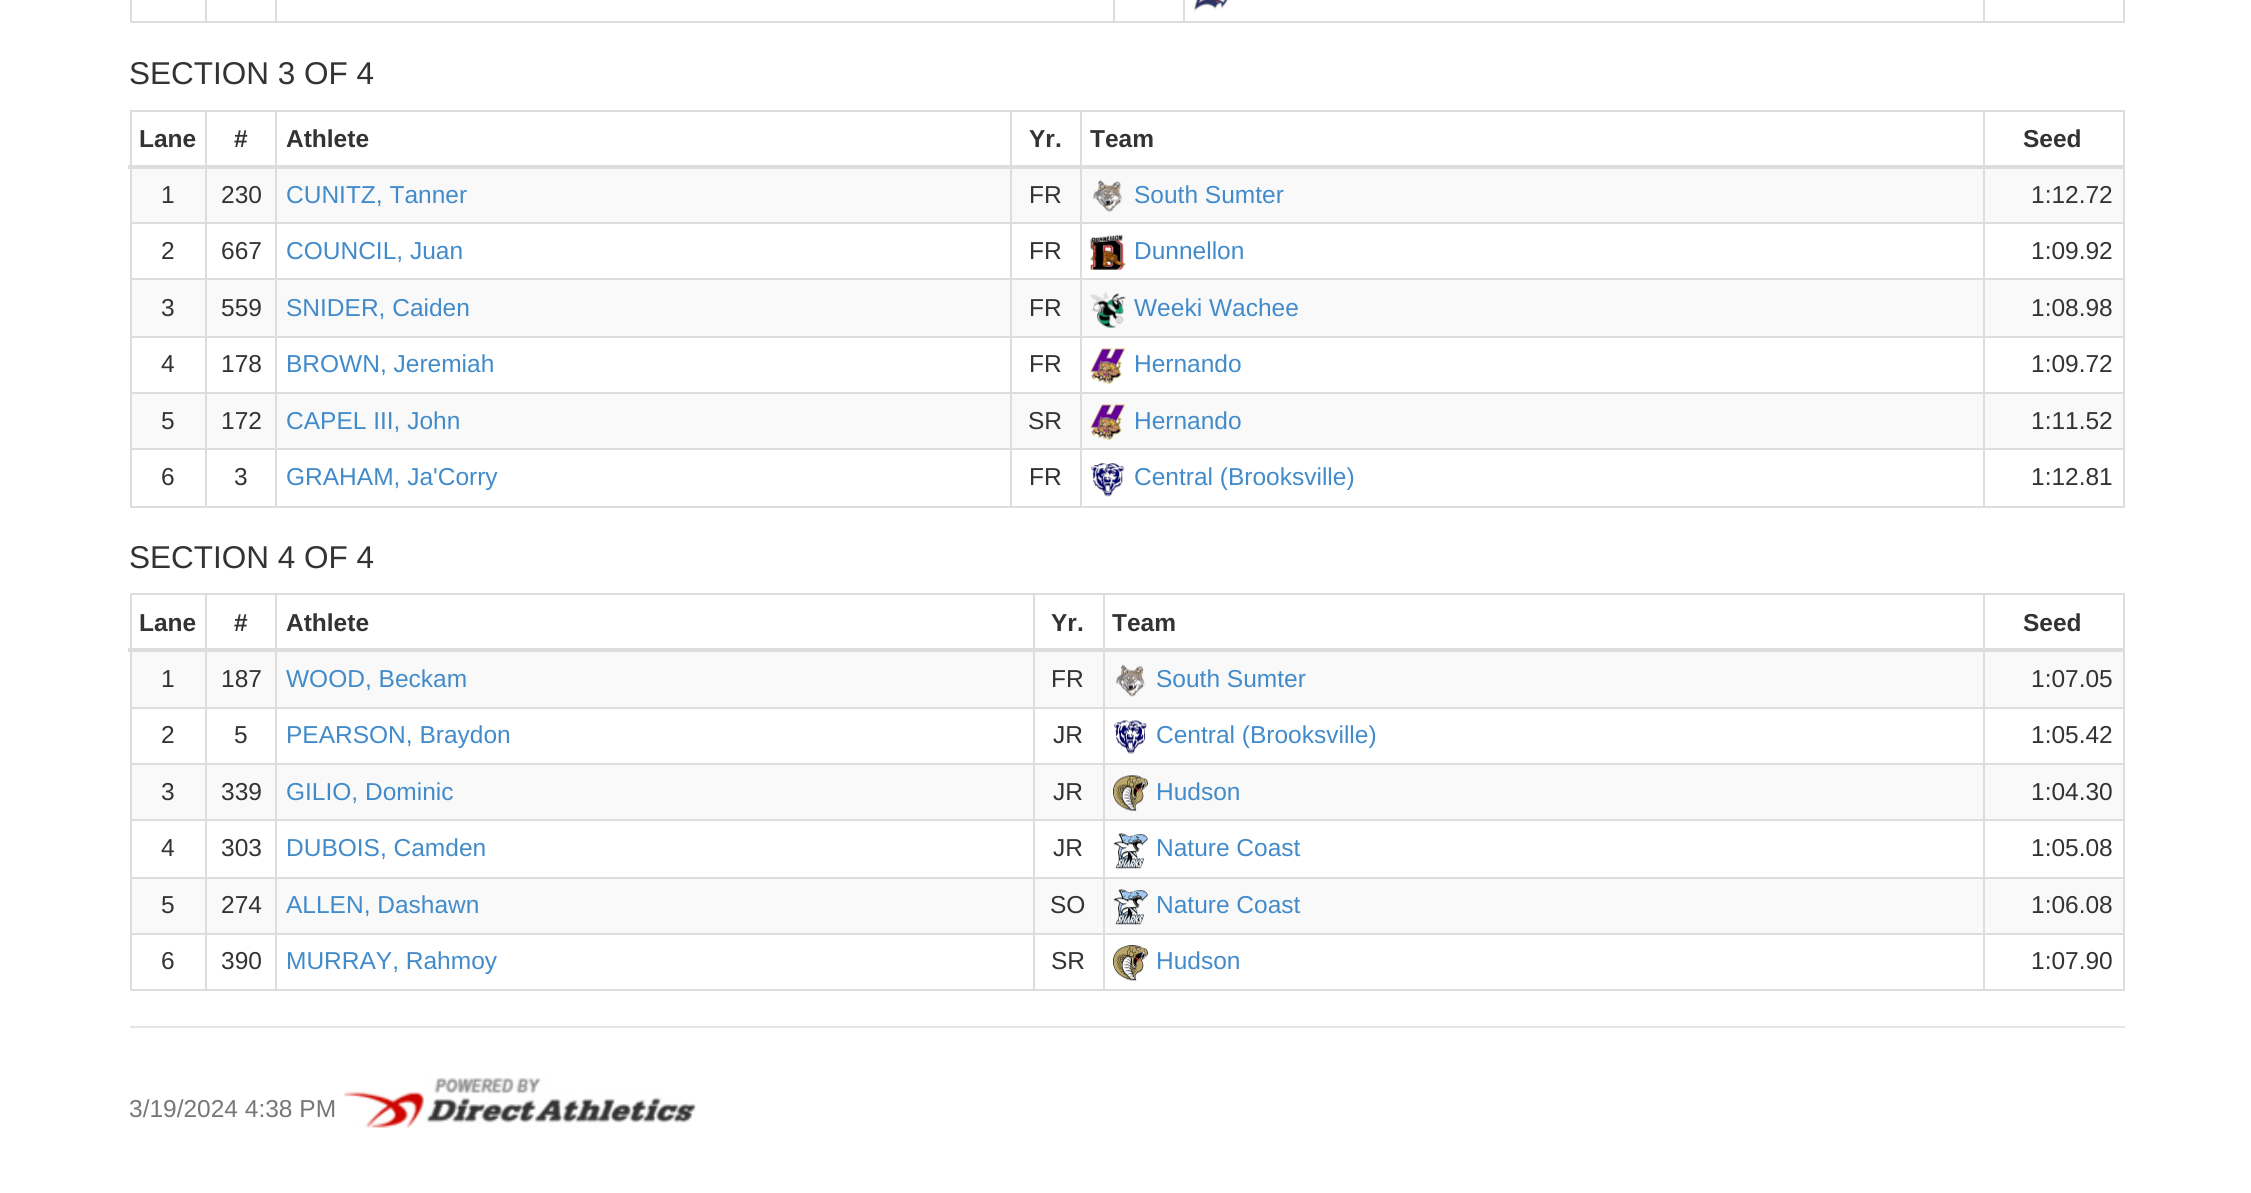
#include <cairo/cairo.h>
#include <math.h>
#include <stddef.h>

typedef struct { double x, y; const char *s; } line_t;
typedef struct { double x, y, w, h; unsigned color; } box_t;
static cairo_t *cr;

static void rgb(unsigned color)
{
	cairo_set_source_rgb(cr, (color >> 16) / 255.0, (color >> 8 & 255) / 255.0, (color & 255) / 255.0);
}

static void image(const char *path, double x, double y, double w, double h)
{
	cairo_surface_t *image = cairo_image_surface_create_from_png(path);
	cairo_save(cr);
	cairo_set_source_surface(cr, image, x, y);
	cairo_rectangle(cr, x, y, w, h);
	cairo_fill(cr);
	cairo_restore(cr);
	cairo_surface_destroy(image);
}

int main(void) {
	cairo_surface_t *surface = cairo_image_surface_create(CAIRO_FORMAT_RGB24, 2251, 1193);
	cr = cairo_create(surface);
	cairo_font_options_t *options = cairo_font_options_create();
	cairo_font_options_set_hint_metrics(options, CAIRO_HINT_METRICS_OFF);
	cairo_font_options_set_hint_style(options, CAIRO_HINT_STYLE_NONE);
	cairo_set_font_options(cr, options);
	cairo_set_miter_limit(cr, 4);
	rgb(0xffffff);
	cairo_paint(cr);
	{
		static const box_t items[] = {
			{2123, 0, 2, 23, 0xdddddd},
			{130, 21, 1995, 2, 0xdddddd},
			{130, 0, 2, 23, 0xdddddd},
			{205, 0, 2, 23, 0xdddddd},
			{275, 0, 2, 23, 0xdddddd},
			{1113, 0, 2, 23, 0xdddddd},
			{1183, 0, 2, 23, 0xdddddd},
		};
		for (size_t i = 0; i < sizeof items / sizeof *items; i++) {
			rgb(items[i].color);
			cairo_rectangle(cr, items[i].x, items[i].y, items[i].w, items[i].h);
			cairo_fill(cr);
		}
	}
	image("img/1.png", 1193, 0, 35, 12);
	{
		static const box_t items[] = {
			{1983, 0, 2, 23, 0xdddddd},
			{130, 110, 1995, 2, 0xdddddd},
			{2123, 110, 2, 398, 0xdddddd},
			{130, 506, 1995, 2, 0xdddddd},
			{130, 110, 2, 398, 0xdddddd},
			{1983, 222, 142, 2, 0xdddddd},
			{1983, 278, 142, 2, 0xdddddd},
			{1983, 336, 142, 2, 0xdddddd},
			{1983, 392, 142, 2, 0xdddddd},
			{1983, 448, 142, 2, 0xdddddd},
			{1983, 448, 2, 60, 0xdddddd},
			{1080, 448, 905, 2, 0xdddddd},
			{1983, 392, 2, 58, 0xdddddd},
			{1080, 392, 905, 2, 0xdddddd},
			{1983, 336, 2, 58, 0xdddddd},
			{1080, 336, 905, 2, 0xdddddd},
			{1983, 278, 2, 60, 0xdddddd},
			{1080, 278, 905, 2, 0xdddddd},
			{1983, 222, 2, 58, 0xdddddd},
			{1080, 222, 905, 2, 0xdddddd},
			{1080, 448, 2, 60, 0xdddddd},
			{1010, 448, 72, 2, 0xdddddd},
			{1080, 392, 2, 58, 0xdddddd},
			{1010, 392, 72, 2, 0xdddddd},
			{1080, 336, 2, 58, 0xdddddd},
			{1010, 336, 72, 2, 0xdddddd},
			{1080, 278, 2, 60, 0xdddddd},
			{1010, 278, 72, 2, 0xdddddd},
			{1080, 222, 2, 58, 0xdddddd},
			{1010, 222, 72, 2, 0xdddddd},
			{1010, 448, 2, 60, 0xdddddd},
			{275, 448, 737, 2, 0xdddddd},
			{1010, 392, 2, 58, 0xdddddd},
			{275, 392, 737, 2, 0xdddddd},
			{1010, 336, 2, 58, 0xdddddd},
			{275, 336, 737, 2, 0xdddddd},
			{1010, 278, 2, 60, 0xdddddd},
			{275, 278, 737, 2, 0xdddddd},
			{1010, 222, 2, 58, 0xdddddd},
			{275, 222, 737, 2, 0xdddddd},
			{275, 448, 2, 60, 0xdddddd},
			{205, 448, 72, 2, 0xdddddd},
			{275, 392, 2, 58, 0xdddddd},
			{205, 392, 72, 2, 0xdddddd},
			{275, 336, 2, 58, 0xdddddd},
			{205, 336, 72, 2, 0xdddddd},
			{275, 278, 2, 60, 0xdddddd},
			{205, 278, 72, 2, 0xdddddd},
			{275, 222, 2, 58, 0xdddddd},
			{205, 222, 72, 2, 0xdddddd},
			{205, 448, 2, 60, 0xdddddd},
			{130, 448, 77, 2, 0xdddddd},
			{205, 392, 2, 58, 0xdddddd},
			{130, 392, 77, 2, 0xdddddd},
			{205, 336, 2, 58, 0xdddddd},
			{130, 336, 77, 2, 0xdddddd},
			{205, 278, 2, 60, 0xdddddd},
			{130, 278, 77, 2, 0xdddddd},
			{205, 222, 2, 58, 0xdddddd},
			{130, 222, 77, 2, 0xdddddd},
			{205, 110, 2, 114, 0xdddddd},
			{275, 110, 2, 114, 0xdddddd},
			{1010, 110, 2, 114, 0xdddddd},
			{1080, 110, 2, 114, 0xdddddd},
			{1983, 110, 2, 114, 0xdddddd},
			{128, 165, 1997, 4, 0xdddddd},
			{132, 169, 73, 53, 0xf9f9f9},
			{207, 169, 68, 53, 0xf9f9f9},
			{277, 169, 733, 53, 0xf9f9f9},
			{1012, 169, 68, 53, 0xf9f9f9},
			{1082, 169, 901, 53, 0xf9f9f9},
		};
		for (size_t i = 0; i < sizeof items / sizeof *items; i++) {
			rgb(items[i].color);
			cairo_rectangle(cr, items[i].x, items[i].y, items[i].w, items[i].h);
			cairo_fill(cr);
		}
	}
	image("img/2.png", 1092, 179, 31, 34);
	cairo_rectangle(cr, 1985, 169, 138, 53);
	cairo_fill(cr);
	image("img/3.png", 1090, 234, 36, 36);
	{
		static const box_t items[] = {
			{132, 280, 73, 56, 0xf9f9f9},
			{207, 280, 68, 56, 0xf9f9f9},
			{277, 280, 733, 56, 0xf9f9f9},
			{1012, 280, 68, 56, 0xf9f9f9},
			{1082, 280, 901, 56, 0xf9f9f9},
		};
		for (size_t i = 0; i < sizeof items / sizeof *items; i++) {
			rgb(items[i].color);
			cairo_rectangle(cr, items[i].x, items[i].y, items[i].w, items[i].h);
			cairo_fill(cr);
		}
	}
	image("img/4.png", 1090, 292, 36, 36);
	cairo_rectangle(cr, 1985, 280, 138, 56);
	cairo_fill(cr);
	image("img/5.png", 1090, 348, 36, 36);
	{
		static const box_t items[] = {
			{132, 394, 73, 54, 0xf9f9f9},
			{207, 394, 68, 54, 0xf9f9f9},
			{277, 394, 733, 54, 0xf9f9f9},
			{1012, 394, 68, 54, 0xf9f9f9},
			{1082, 394, 901, 54, 0xf9f9f9},
		};
		for (size_t i = 0; i < sizeof items / sizeof *items; i++) {
			rgb(items[i].color);
			cairo_rectangle(cr, items[i].x, items[i].y, items[i].w, items[i].h);
			cairo_fill(cr);
		}
	}
	image("img/6.png", 1090, 404, 36, 36);
	cairo_rectangle(cr, 1985, 394, 138, 54);
	cairo_fill(cr);
	image("img/7.png", 1091, 463, 34, 34);
	{
		static const box_t items[] = {
			{130, 593, 1995, 2, 0xdddddd},
			{2123, 593, 2, 398, 0xdddddd},
			{130, 989, 1995, 2, 0xdddddd},
			{130, 593, 2, 398, 0xdddddd},
			{1983, 707, 142, 2, 0xdddddd},
			{1983, 763, 142, 2, 0xdddddd},
			{1983, 819, 142, 2, 0xdddddd},
			{1983, 877, 142, 2, 0xdddddd},
			{1983, 933, 142, 2, 0xdddddd},
			{1983, 933, 2, 58, 0xdddddd},
			{1103, 933, 882, 2, 0xdddddd},
			{1983, 877, 2, 58, 0xdddddd},
			{1103, 877, 882, 2, 0xdddddd},
			{1983, 819, 2, 60, 0xdddddd},
			{1103, 819, 882, 2, 0xdddddd},
			{1983, 763, 2, 58, 0xdddddd},
			{1103, 763, 882, 2, 0xdddddd},
			{1983, 707, 2, 58, 0xdddddd},
			{1103, 707, 882, 2, 0xdddddd},
			{1103, 933, 2, 58, 0xdddddd},
			{1033, 933, 71, 2, 0xdddddd},
			{1103, 877, 2, 58, 0xdddddd},
			{1033, 877, 71, 2, 0xdddddd},
			{1103, 819, 2, 60, 0xdddddd},
			{1033, 819, 71, 2, 0xdddddd},
			{1103, 763, 2, 58, 0xdddddd},
			{1033, 763, 71, 2, 0xdddddd},
			{1103, 707, 2, 58, 0xdddddd},
			{1033, 707, 71, 2, 0xdddddd},
			{1033, 933, 2, 58, 0xdddddd},
			{275, 933, 759, 2, 0xdddddd},
			{1033, 877, 2, 58, 0xdddddd},
			{275, 877, 759, 2, 0xdddddd},
			{1033, 819, 2, 60, 0xdddddd},
			{275, 819, 759, 2, 0xdddddd},
			{1033, 763, 2, 58, 0xdddddd},
			{275, 763, 759, 2, 0xdddddd},
			{1033, 707, 2, 58, 0xdddddd},
			{275, 707, 759, 2, 0xdddddd},
			{275, 933, 2, 58, 0xdddddd},
			{205, 933, 72, 2, 0xdddddd},
			{275, 877, 2, 58, 0xdddddd},
			{205, 877, 72, 2, 0xdddddd},
			{275, 819, 2, 60, 0xdddddd},
			{205, 819, 72, 2, 0xdddddd},
			{275, 763, 2, 58, 0xdddddd},
			{205, 763, 72, 2, 0xdddddd},
			{275, 707, 2, 58, 0xdddddd},
			{205, 707, 72, 2, 0xdddddd},
			{205, 933, 2, 58, 0xdddddd},
			{130, 933, 77, 2, 0xdddddd},
			{205, 877, 2, 58, 0xdddddd},
			{130, 877, 77, 2, 0xdddddd},
			{205, 819, 2, 60, 0xdddddd},
			{130, 819, 77, 2, 0xdddddd},
			{205, 763, 2, 58, 0xdddddd},
			{130, 763, 77, 2, 0xdddddd},
			{205, 707, 2, 58, 0xdddddd},
			{130, 707, 77, 2, 0xdddddd},
			{205, 593, 2, 116, 0xdddddd},
			{275, 593, 2, 116, 0xdddddd},
			{1033, 593, 2, 116, 0xdddddd},
			{1103, 593, 2, 116, 0xdddddd},
			{1983, 593, 2, 116, 0xdddddd},
			{128, 648, 1997, 4, 0xdddddd},
			{132, 652, 73, 55, 0xf9f9f9},
			{207, 652, 68, 55, 0xf9f9f9},
			{277, 652, 756, 55, 0xf9f9f9},
			{1035, 652, 68, 55, 0xf9f9f9},
			{1105, 652, 878, 55, 0xf9f9f9},
		};
		for (size_t i = 0; i < sizeof items / sizeof *items; i++) {
			rgb(items[i].color);
			cairo_rectangle(cr, items[i].x, items[i].y, items[i].w, items[i].h);
			cairo_fill(cr);
		}
	}
	image("img/8.png", 1115, 664, 31, 34);
	cairo_rectangle(cr, 1985, 652, 138, 55);
	cairo_fill(cr);
	image("img/9.png", 1114, 720, 33, 34);
	{
		static const box_t items[] = {
			{132, 765, 73, 54, 0xf9f9f9},
			{207, 765, 68, 54, 0xf9f9f9},
			{277, 765, 756, 54, 0xf9f9f9},
			{1035, 765, 68, 54, 0xf9f9f9},
			{1105, 765, 878, 54, 0xf9f9f9},
		};
		for (size_t i = 0; i < sizeof items / sizeof *items; i++) {
			rgb(items[i].color);
			cairo_rectangle(cr, items[i].x, items[i].y, items[i].w, items[i].h);
			cairo_fill(cr);
		}
	}
	image("img/10.png", 1113, 775, 35, 36);
	cairo_rectangle(cr, 1985, 765, 138, 54);
	cairo_fill(cr);
	image("img/11.png", 1113, 833, 35, 36);
	{
		static const box_t items[] = {
			{132, 879, 73, 54, 0xf9f9f9},
			{207, 879, 68, 54, 0xf9f9f9},
			{277, 879, 756, 54, 0xf9f9f9},
			{1035, 879, 68, 54, 0xf9f9f9},
			{1105, 879, 878, 54, 0xf9f9f9},
		};
		for (size_t i = 0; i < sizeof items / sizeof *items; i++) {
			rgb(items[i].color);
			cairo_rectangle(cr, items[i].x, items[i].y, items[i].w, items[i].h);
			cairo_fill(cr);
		}
	}
	image("img/12.png", 1113, 889, 35, 36);
	cairo_rectangle(cr, 1985, 879, 138, 54);
	cairo_fill(cr);
	image("img/13.png", 1113, 945, 35, 36);
	rgb(0xe5e5e5);
	cairo_rectangle(cr, 130, 1026, 1995, 2);
	cairo_fill(cr);
	image("img/14.png", 344, 1077, 352, 51);
	cairo_select_font_face(cr, "Liberation Sans", CAIRO_FONT_SLANT_NORMAL, CAIRO_FONT_WEIGHT_NORMAL);
	cairo_set_font_size(cr, 31.5);
	rgb(0x333333);
	cairo_move_to(cr, 129, 84);
	cairo_show_text(cr, "SECTION 3 OF 4");
	cairo_select_font_face(cr, "Liberation Sans", CAIRO_FONT_SLANT_NORMAL, CAIRO_FONT_WEIGHT_BOLD);
	cairo_set_font_size(cr, 24.5);
	{
		static const line_t items[] = {
			{139, 147, "Lane"},
			{234, 147, "#"},
			{286, 147, "Athlete"},
			{1029, 147, "Yr."},
			{1090, 147, "Team"},
			{2023, 147, "Seed"},
		};
		for (size_t i = 0; i < sizeof items / sizeof *items; i++) {
			cairo_move_to(cr, items[i].x, items[i].y);
			cairo_show_text(cr, items[i].s);
		}
	}
	cairo_select_font_face(cr, "Liberation Sans", CAIRO_FONT_SLANT_NORMAL, CAIRO_FONT_WEIGHT_NORMAL);
	cairo_move_to(cr, 161, 203);
	cairo_show_text(cr, "1");
	cairo_move_to(cr, 221, 203);
	cairo_show_text(cr, "230");
	rgb(0x428bca);
	cairo_move_to(cr, 286, 203);
	cairo_show_text(cr, "CUNITZ, Tanner");
	rgb(0x333333);
	cairo_move_to(cr, 1029, 203);
	cairo_show_text(cr, "FR");
	rgb(0x428bca);
	cairo_move_to(cr, 1134, 203);
	cairo_show_text(cr, "South Sumter");
	rgb(0x333333);
	{
		static const line_t items[] = {
			{2031, 203, "1:12.72"},
			{161, 259, "2"},
			{221, 259, "667"},
		};
		for (size_t i = 0; i < sizeof items / sizeof *items; i++) {
			cairo_move_to(cr, items[i].x, items[i].y);
			cairo_show_text(cr, items[i].s);
		}
	}
	rgb(0x428bca);
	cairo_move_to(cr, 286, 259);
	cairo_show_text(cr, "COUNCIL, Juan");
	rgb(0x333333);
	cairo_move_to(cr, 1029, 259);
	cairo_show_text(cr, "FR");
	rgb(0x428bca);
	cairo_move_to(cr, 1134, 259);
	cairo_show_text(cr, "Dunnellon");
	rgb(0x333333);
	{
		static const line_t items[] = {
			{2031, 259, "1:09.92"},
			{161, 316, "3"},
			{221, 316, "559"},
		};
		for (size_t i = 0; i < sizeof items / sizeof *items; i++) {
			cairo_move_to(cr, items[i].x, items[i].y);
			cairo_show_text(cr, items[i].s);
		}
	}
	rgb(0x428bca);
	cairo_move_to(cr, 286, 316);
	cairo_show_text(cr, "SNIDER, Caiden");
	rgb(0x333333);
	cairo_move_to(cr, 1029, 316);
	cairo_show_text(cr, "FR");
	rgb(0x428bca);
	cairo_move_to(cr, 1134, 316);
	cairo_show_text(cr, "Weeki Wachee");
	rgb(0x333333);
	{
		static const line_t items[] = {
			{2031, 316, "1:08.98"},
			{161, 372, "4"},
			{221, 372, "178"},
		};
		for (size_t i = 0; i < sizeof items / sizeof *items; i++) {
			cairo_move_to(cr, items[i].x, items[i].y);
			cairo_show_text(cr, items[i].s);
		}
	}
	rgb(0x428bca);
	cairo_move_to(cr, 286, 372);
	cairo_show_text(cr, "BROWN, Jeremiah");
	rgb(0x333333);
	cairo_move_to(cr, 1029, 372);
	cairo_show_text(cr, "FR");
	rgb(0x428bca);
	cairo_move_to(cr, 1134, 372);
	cairo_show_text(cr, "Hernando");
	rgb(0x333333);
	{
		static const line_t items[] = {
			{2031, 372, "1:09.72"},
			{161, 429, "5"},
			{221, 429, "172"},
		};
		for (size_t i = 0; i < sizeof items / sizeof *items; i++) {
			cairo_move_to(cr, items[i].x, items[i].y);
			cairo_show_text(cr, items[i].s);
		}
	}
	rgb(0x428bca);
	cairo_move_to(cr, 286, 429);
	cairo_show_text(cr, "CAPEL III, John");
	rgb(0x333333);
	cairo_move_to(cr, 1028, 429);
	cairo_show_text(cr, "SR");
	rgb(0x428bca);
	cairo_move_to(cr, 1134, 429);
	cairo_show_text(cr, "Hernando");
	rgb(0x333333);
	{
		static const line_t items[] = {
			{2031, 429, "1:11.52"},
			{161, 485, "6"},
			{234, 485, "3"},
		};
		for (size_t i = 0; i < sizeof items / sizeof *items; i++) {
			cairo_move_to(cr, items[i].x, items[i].y);
			cairo_show_text(cr, items[i].s);
		}
	}
	rgb(0x428bca);
	cairo_move_to(cr, 286, 485);
	cairo_show_text(cr, "GRAHAM, Ja'Corry");
	rgb(0x333333);
	cairo_move_to(cr, 1029, 485);
	cairo_show_text(cr, "FR");
	rgb(0x428bca);
	cairo_move_to(cr, 1134, 485);
	cairo_show_text(cr, "Central (Brooksville)");
	rgb(0x333333);
	cairo_move_to(cr, 2031, 485);
	cairo_show_text(cr, "1:12.81");
	cairo_set_font_size(cr, 31.5);
	cairo_move_to(cr, 129, 568);
	cairo_show_text(cr, "SECTION 4 OF 4");
	cairo_select_font_face(cr, "Liberation Sans", CAIRO_FONT_SLANT_NORMAL, CAIRO_FONT_WEIGHT_BOLD);
	cairo_set_font_size(cr, 24.5);
	{
		static const line_t items[] = {
			{139, 631, "Lane"},
			{234, 631, "#"},
			{286, 631, "Athlete"},
			{1051, 631, "Yr."},
			{1112, 631, "Team"},
			{2023, 631, "Seed"},
		};
		for (size_t i = 0; i < sizeof items / sizeof *items; i++) {
			cairo_move_to(cr, items[i].x, items[i].y);
			cairo_show_text(cr, items[i].s);
		}
	}
	cairo_select_font_face(cr, "Liberation Sans", CAIRO_FONT_SLANT_NORMAL, CAIRO_FONT_WEIGHT_NORMAL);
	cairo_move_to(cr, 161, 687);
	cairo_show_text(cr, "1");
	cairo_move_to(cr, 221, 687);
	cairo_show_text(cr, "187");
	rgb(0x428bca);
	cairo_move_to(cr, 286, 687);
	cairo_show_text(cr, "WOOD, Beckam");
	rgb(0x333333);
	cairo_move_to(cr, 1051, 687);
	cairo_show_text(cr, "FR");
	rgb(0x428bca);
	cairo_move_to(cr, 1156, 687);
	cairo_show_text(cr, "South Sumter");
	rgb(0x333333);
	{
		static const line_t items[] = {
			{2031, 687, "1:07.05"},
			{161, 743, "2"},
			{234, 743, "5"},
		};
		for (size_t i = 0; i < sizeof items / sizeof *items; i++) {
			cairo_move_to(cr, items[i].x, items[i].y);
			cairo_show_text(cr, items[i].s);
		}
	}
	rgb(0x428bca);
	cairo_move_to(cr, 286, 743);
	cairo_show_text(cr, "PEARSON, Braydon");
	rgb(0x333333);
	cairo_move_to(cr, 1053, 743);
	cairo_show_text(cr, "JR");
	rgb(0x428bca);
	cairo_move_to(cr, 1156, 743);
	cairo_show_text(cr, "Central (Brooksville)");
	rgb(0x333333);
	{
		static const line_t items[] = {
			{2031, 743, "1:05.42"},
			{161, 800, "3"},
			{221, 800, "339"},
		};
		for (size_t i = 0; i < sizeof items / sizeof *items; i++) {
			cairo_move_to(cr, items[i].x, items[i].y);
			cairo_show_text(cr, items[i].s);
		}
	}
	rgb(0x428bca);
	cairo_move_to(cr, 286, 800);
	cairo_show_text(cr, "GILIO, Dominic");
	rgb(0x333333);
	cairo_move_to(cr, 1053, 800);
	cairo_show_text(cr, "JR");
	rgb(0x428bca);
	cairo_move_to(cr, 1156, 800);
	cairo_show_text(cr, "Hudson");
	rgb(0x333333);
	{
		static const line_t items[] = {
			{2031, 800, "1:04.30"},
			{161, 856, "4"},
			{221, 856, "303"},
		};
		for (size_t i = 0; i < sizeof items / sizeof *items; i++) {
			cairo_move_to(cr, items[i].x, items[i].y);
			cairo_show_text(cr, items[i].s);
		}
	}
	rgb(0x428bca);
	cairo_move_to(cr, 286, 856);
	cairo_show_text(cr, "DUBOIS, Camden");
	rgb(0x333333);
	cairo_move_to(cr, 1053, 856);
	cairo_show_text(cr, "JR");
	rgb(0x428bca);
	cairo_move_to(cr, 1156, 856);
	cairo_show_text(cr, "Nature Coast");
	rgb(0x333333);
	{
		static const line_t items[] = {
			{2031, 856, "1:05.08"},
			{161, 913, "5"},
			{221, 913, "274"},
		};
		for (size_t i = 0; i < sizeof items / sizeof *items; i++) {
			cairo_move_to(cr, items[i].x, items[i].y);
			cairo_show_text(cr, items[i].s);
		}
	}
	rgb(0x428bca);
	cairo_move_to(cr, 286, 913);
	cairo_show_text(cr, "ALLEN, Dashawn");
	rgb(0x333333);
	cairo_move_to(cr, 1050, 913);
	cairo_show_text(cr, "SO");
	rgb(0x428bca);
	cairo_move_to(cr, 1156, 913);
	cairo_show_text(cr, "Nature Coast");
	rgb(0x333333);
	{
		static const line_t items[] = {
			{2031, 913, "1:06.08"},
			{161, 969, "6"},
			{221, 969, "390"},
		};
		for (size_t i = 0; i < sizeof items / sizeof *items; i++) {
			cairo_move_to(cr, items[i].x, items[i].y);
			cairo_show_text(cr, items[i].s);
		}
	}
	rgb(0x428bca);
	cairo_move_to(cr, 286, 969);
	cairo_show_text(cr, "MURRAY, Rahmoy");
	rgb(0x333333);
	cairo_move_to(cr, 1051, 969);
	cairo_show_text(cr, "SR");
	rgb(0x428bca);
	cairo_move_to(cr, 1156, 969);
	cairo_show_text(cr, "Hudson");
	rgb(0x333333);
	cairo_move_to(cr, 2031, 969);
	cairo_show_text(cr, "1:07.90");
	rgb(0x777777);
	cairo_move_to(cr, 129, 1117);
	cairo_show_text(cr, "3/19/2024 4:38 PM");
	cairo_surface_write_to_png(surface, "page.png");
	cairo_font_options_destroy(options);
	cairo_destroy(cr);
	cairo_surface_destroy(surface);
	return 0;
}
